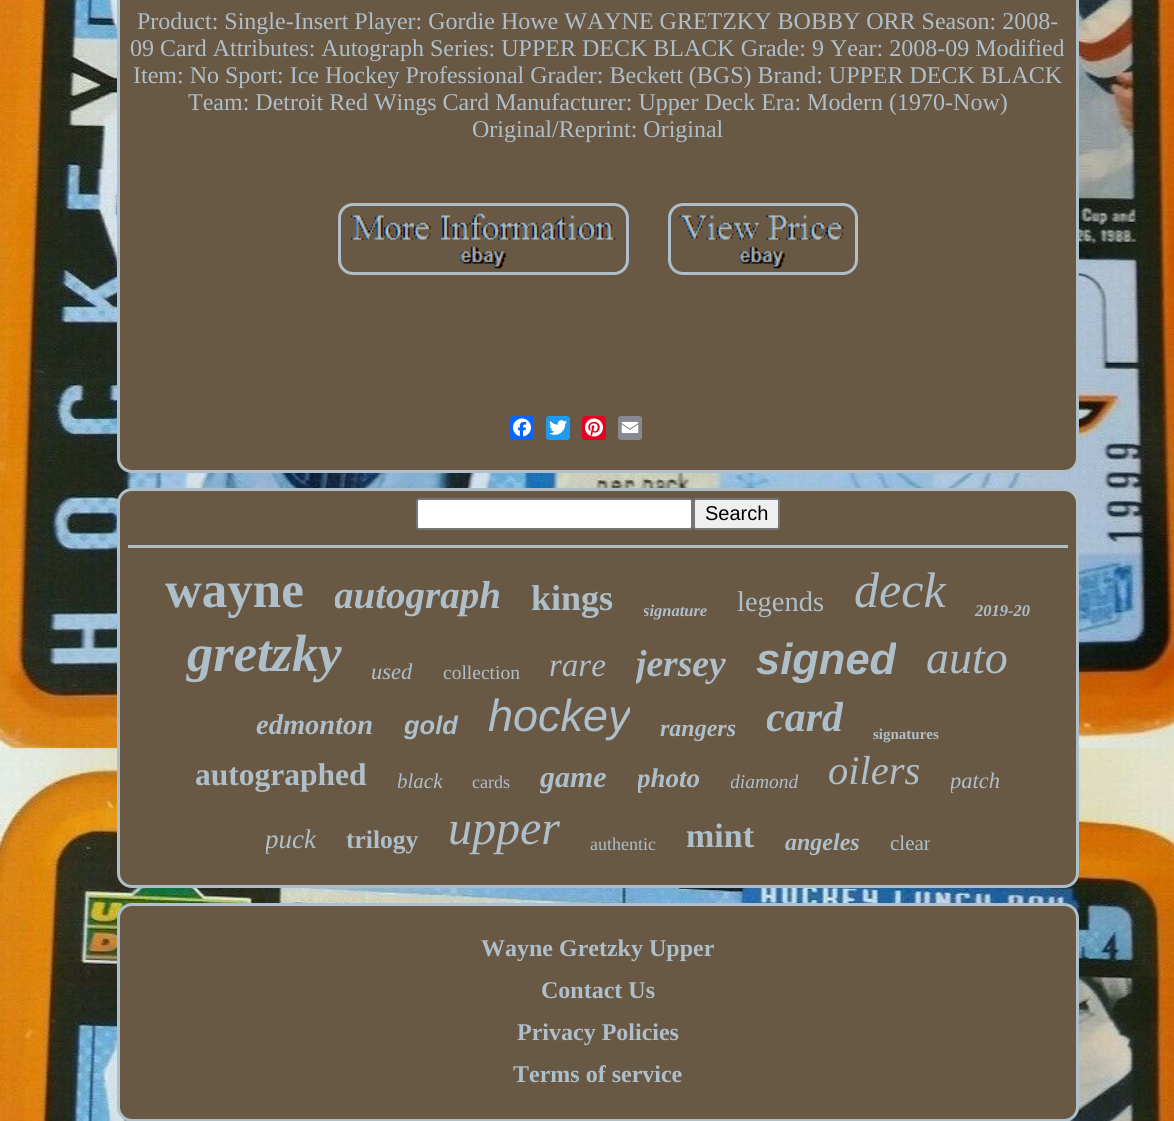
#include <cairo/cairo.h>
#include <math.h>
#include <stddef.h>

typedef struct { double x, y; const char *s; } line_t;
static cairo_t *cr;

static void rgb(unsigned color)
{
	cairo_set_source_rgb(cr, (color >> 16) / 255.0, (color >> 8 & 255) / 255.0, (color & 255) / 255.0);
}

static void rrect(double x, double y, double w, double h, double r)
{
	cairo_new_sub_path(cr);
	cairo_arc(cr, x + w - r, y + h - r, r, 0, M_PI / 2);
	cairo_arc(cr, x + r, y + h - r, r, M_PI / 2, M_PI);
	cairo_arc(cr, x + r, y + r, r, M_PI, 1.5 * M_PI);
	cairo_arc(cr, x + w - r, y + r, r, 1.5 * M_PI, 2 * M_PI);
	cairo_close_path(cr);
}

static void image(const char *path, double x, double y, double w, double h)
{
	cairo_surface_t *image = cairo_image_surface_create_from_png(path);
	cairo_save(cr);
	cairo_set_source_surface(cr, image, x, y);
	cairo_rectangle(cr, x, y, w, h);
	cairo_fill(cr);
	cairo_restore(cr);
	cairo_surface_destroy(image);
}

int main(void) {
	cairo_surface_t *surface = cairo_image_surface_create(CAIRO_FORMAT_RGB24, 1174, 1121);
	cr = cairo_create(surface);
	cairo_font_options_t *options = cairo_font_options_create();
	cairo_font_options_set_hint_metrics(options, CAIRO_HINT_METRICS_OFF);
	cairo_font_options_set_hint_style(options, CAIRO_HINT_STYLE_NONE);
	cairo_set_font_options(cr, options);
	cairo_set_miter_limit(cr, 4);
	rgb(0xffffff);
	cairo_paint(cr);
	image("img/1.png", 0, 0, 1174, 1121);
	rgb(0x695844);
	rrect(118.5, -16.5, 959, 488, 13.5);
	cairo_fill_preserve(cr);
	rgb(0xaebfc9);
	cairo_set_line_width(cr, 3);
	cairo_stroke(cr);
	rrect(339.5, 204.5, 288, 69, 13.5);
	cairo_stroke(cr);
	rrect(669.5, 204.5, 187, 69, 13.5);
	cairo_stroke(cr);
	image("img/2.png", 350, 213, 266, 56);
	image("img/3.png", 679, 215, 165, 54);
	rgb(0x0866ff);
	rrect(510, 416, 24, 24, 3);
	cairo_fill(cr);
	image("img/4.png", 513, 418, 18, 19);
	rgb(0x1d9bf0);
	rrect(546, 416, 24, 24, 3);
	cairo_fill(cr);
	image("img/5.png", 549, 420, 18, 15);
	rgb(0xe60023);
	rrect(582, 416, 24, 24, 3);
	cairo_fill(cr);
	image("img/6.png", 585, 418, 18, 19);
	rgb(0x888990);
	rrect(618, 416, 24, 24, 3);
	cairo_fill(cr);
	image("img/7.png", 621, 421, 18, 13);
	rgb(0x695844);
	rrect(118.5, 489.5, 959, 397, 13.5);
	cairo_fill_preserve(cr);
	rgb(0xaebfc9);
	cairo_stroke(cr);
	rgb(0xffffff);
	rrect(417, 499, 275, 30, 2);
	cairo_fill_preserve(cr);
	rgb(0x767676);
	cairo_set_line_width(cr, 2);
	cairo_stroke(cr);
	rgb(0xefefef);
	rrect(694, 499, 85, 30, 2);
	cairo_fill_preserve(cr);
	rgb(0x767676);
	cairo_stroke(cr);
	rgb(0xaebfc9);
	cairo_rectangle(cr, 128, 545, 940, 3);
	cairo_fill(cr);
	rgb(0x695844);
	rrect(118.5, 904.5, 959, 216, 13.5);
	cairo_fill_preserve(cr);
	rgb(0xaebfc9);
	cairo_set_line_width(cr, 3);
	cairo_stroke(cr);
	cairo_select_font_face(cr, "Liberation Serif", CAIRO_FONT_SLANT_NORMAL, CAIRO_FONT_WEIGHT_NORMAL);
	cairo_set_font_size(cr, 24);
	{
		static const line_t items[] = {
			{137, 29, "Product: Single-Insert Player: Gordie Howe WAYNE GRETZKY BOBBY ORR Season: 2008-"},
			{130, 56, "09 Card Attributes: Autograph Series: UPPER DECK BLACK Grade: 9 Year: 2008-09 Modified"},
			{133, 83, "Item: No Sport: Ice Hockey Professional Grader: Beckett (BGS) Brand: UPPER DECK BLACK"},
			{188, 110, "Team: Detroit Red Wings Card Manufacturer: Upper Deck Era: Modern (1970-Now)"},
			{472, 137, "Original/Reprint: Original"},
		};
		for (size_t i = 0; i < sizeof items / sizeof *items; i++) {
			cairo_move_to(cr, items[i].x, items[i].y);
			cairo_show_text(cr, items[i].s);
		}
	}
	cairo_select_font_face(cr, "Liberation Sans", CAIRO_FONT_SLANT_NORMAL, CAIRO_FONT_WEIGHT_NORMAL);
	cairo_set_font_size(cr, 20);
	rgb(0x000000);
	cairo_move_to(cr, 705, 520);
	cairo_show_text(cr, "Search");
	cairo_select_font_face(cr, "Liberation Serif", CAIRO_FONT_SLANT_NORMAL, CAIRO_FONT_WEIGHT_BOLD);
	cairo_set_font_size(cr, 51);
	rgb(0xaebfc9);
	cairo_move_to(cr, 165, 607);
	cairo_show_text(cr, "wayne");
	cairo_save(cr);
	cairo_rectangle(cr, 335, 575, 166, 45);
	cairo_clip(cr);
	cairo_select_font_face(cr, "Liberation Serif", CAIRO_FONT_SLANT_ITALIC, CAIRO_FONT_WEIGHT_BOLD);
	cairo_set_font_size(cr, 39);
	cairo_move_to(cr, 334, 608);
	cairo_show_text(cr, "autograph");
	cairo_restore(cr);
	cairo_set_font_size(cr, 36);
	cairo_move_to(cr, 531, 610);
	cairo_show_text(cr, "kings");
	cairo_save(cr);
	cairo_rectangle(cr, 644, 602, 64, 18);
	cairo_clip(cr);
	cairo_select_font_face(cr, "Liberation Serif", CAIRO_FONT_SLANT_ITALIC, CAIRO_FONT_WEIGHT_BOLD);
	cairo_set_font_size(cr, 16.5);
	cairo_move_to(cr, 643, 616);
	cairo_show_text(cr, "signature");
	cairo_restore(cr);
	cairo_select_font_face(cr, "Liberation Serif", CAIRO_FONT_SLANT_NORMAL, CAIRO_FONT_WEIGHT_NORMAL);
	cairo_set_font_size(cr, 28.5);
	cairo_move_to(cr, 737, 611);
	cairo_show_text(cr, "legends");
	cairo_select_font_face(cr, "Liberation Serif", CAIRO_FONT_SLANT_ITALIC, CAIRO_FONT_WEIGHT_NORMAL);
	cairo_set_font_size(cr, 50);
	cairo_move_to(cr, 854, 607);
	cairo_show_text(cr, "deck");
	cairo_select_font_face(cr, "Liberation Serif", CAIRO_FONT_SLANT_ITALIC, CAIRO_FONT_WEIGHT_BOLD);
	cairo_set_font_size(cr, 16.5);
	cairo_move_to(cr, 975, 616);
	cairo_show_text(cr, "2019-20");
	cairo_save(cr);
	cairo_rectangle(cr, 186, 626, 156, 60);
	cairo_clip(cr);
	cairo_set_font_size(cr, 52.5);
	cairo_move_to(cr, 187, 671);
	cairo_show_text(cr, "gretzky");
	cairo_restore(cr);
	cairo_select_font_face(cr, "Liberation Serif", CAIRO_FONT_SLANT_ITALIC, CAIRO_FONT_WEIGHT_NORMAL);
	cairo_set_font_size(cr, 22.5);
	cairo_move_to(cr, 371, 679);
	cairo_show_text(cr, "used");
	cairo_select_font_face(cr, "Liberation Serif", CAIRO_FONT_SLANT_NORMAL, CAIRO_FONT_WEIGHT_NORMAL);
	cairo_set_font_size(cr, 19.5);
	cairo_move_to(cr, 443, 679);
	cairo_show_text(cr, "collection");
	cairo_select_font_face(cr, "Liberation Serif", CAIRO_FONT_SLANT_ITALIC, CAIRO_FONT_WEIGHT_NORMAL);
	cairo_set_font_size(cr, 33);
	cairo_move_to(cr, 549, 676);
	cairo_show_text(cr, "rare");
	cairo_save(cr);
	cairo_rectangle(cr, 636, 644, 90, 42);
	cairo_clip(cr);
	cairo_select_font_face(cr, "Liberation Serif", CAIRO_FONT_SLANT_ITALIC, CAIRO_FONT_WEIGHT_BOLD);
	cairo_set_font_size(cr, 37.5);
	cairo_move_to(cr, 636, 676);
	cairo_show_text(cr, "jersey");
	cairo_restore(cr);
	cairo_save(cr);
	cairo_rectangle(cr, 756, 636, 140, 50);
	cairo_clip(cr);
	cairo_select_font_face(cr, "Liberation Sans", CAIRO_FONT_SLANT_ITALIC, CAIRO_FONT_WEIGHT_BOLD);
	cairo_set_font_size(cr, 43.5);
	cairo_move_to(cr, 756, 674);
	cairo_show_text(cr, "signed");
	cairo_restore(cr);
	cairo_set_font_size(cr, 46);
	cairo_move_to(cr, 926, 673);
	cairo_show_text(cr, "auto");
	cairo_select_font_face(cr, "Liberation Serif", CAIRO_FONT_SLANT_ITALIC, CAIRO_FONT_WEIGHT_BOLD);
	cairo_set_font_size(cr, 28.5);
	cairo_move_to(cr, 256, 734);
	cairo_show_text(cr, "edmonton");
	cairo_select_font_face(cr, "Liberation Sans", CAIRO_FONT_SLANT_ITALIC, CAIRO_FONT_WEIGHT_BOLD);
	cairo_set_font_size(cr, 25.5);
	cairo_move_to(cr, 404, 734);
	cairo_show_text(cr, "gold");
	cairo_save(cr);
	cairo_rectangle(cr, 488, 692, 142, 51);
	cairo_clip(cr);
	cairo_select_font_face(cr, "Liberation Sans", CAIRO_FONT_SLANT_ITALIC, CAIRO_FONT_WEIGHT_NORMAL);
	cairo_set_font_size(cr, 45);
	cairo_move_to(cr, 488, 731);
	cairo_show_text(cr, "hockey");
	cairo_restore(cr);
	cairo_select_font_face(cr, "Liberation Serif", CAIRO_FONT_SLANT_ITALIC, CAIRO_FONT_WEIGHT_BOLD);
	cairo_set_font_size(cr, 24);
	cairo_move_to(cr, 660, 736);
	cairo_show_text(cr, "rangers");
	cairo_save(cr);
	cairo_rectangle(cr, 767, 695, 76, 48);
	cairo_clip(cr);
	cairo_set_font_size(cr, 42);
	cairo_move_to(cr, 766, 731);
	cairo_show_text(cr, "card");
	cairo_restore(cr);
	cairo_select_font_face(cr, "Liberation Serif", CAIRO_FONT_SLANT_NORMAL, CAIRO_FONT_WEIGHT_BOLD);
	cairo_set_font_size(cr, 15);
	cairo_move_to(cr, 873, 739);
	cairo_show_text(cr, "signatures");
	cairo_set_font_size(cr, 31.5);
	cairo_move_to(cr, 195, 785);
	cairo_show_text(cr, "autographed");
	cairo_select_font_face(cr, "Liberation Serif", CAIRO_FONT_SLANT_ITALIC, CAIRO_FONT_WEIGHT_NORMAL);
	cairo_set_font_size(cr, 21);
	cairo_move_to(cr, 397, 788);
	cairo_show_text(cr, "black");
	cairo_select_font_face(cr, "Liberation Serif", CAIRO_FONT_SLANT_NORMAL, CAIRO_FONT_WEIGHT_NORMAL);
	cairo_set_font_size(cr, 18);
	cairo_move_to(cr, 472, 788);
	cairo_show_text(cr, "cards");
	cairo_save(cr);
	cairo_rectangle(cr, 540, 761, 68, 34);
	cairo_clip(cr);
	cairo_select_font_face(cr, "Liberation Serif", CAIRO_FONT_SLANT_ITALIC, CAIRO_FONT_WEIGHT_BOLD);
	cairo_set_font_size(cr, 30);
	cairo_move_to(cr, 540, 787);
	cairo_show_text(cr, "game");
	cairo_restore(cr);
	cairo_save(cr);
	cairo_rectangle(cr, 638, 764, 63, 31);
	cairo_clip(cr);
	cairo_select_font_face(cr, "Liberation Serif", CAIRO_FONT_SLANT_ITALIC, CAIRO_FONT_WEIGHT_BOLD);
	cairo_set_font_size(cr, 27);
	cairo_move_to(cr, 637, 787);
	cairo_show_text(cr, "photo");
	cairo_restore(cr);
	cairo_save(cr);
	cairo_rectangle(cr, 731, 771, 67, 24);
	cairo_clip(cr);
	cairo_select_font_face(cr, "Liberation Serif", CAIRO_FONT_SLANT_ITALIC, CAIRO_FONT_WEIGHT_NORMAL);
	cairo_set_font_size(cr, 19.5);
	cairo_move_to(cr, 730, 788);
	cairo_show_text(cr, "diamond");
	cairo_restore(cr);
	cairo_select_font_face(cr, "Liberation Serif", CAIRO_FONT_SLANT_ITALIC, CAIRO_FONT_WEIGHT_NORMAL);
	cairo_set_font_size(cr, 40.5);
	cairo_move_to(cr, 828, 784);
	cairo_show_text(cr, "oilers");
	cairo_save(cr);
	cairo_rectangle(cr, 951, 770, 50, 25);
	cairo_clip(cr);
	cairo_set_font_size(cr, 22.5);
	cairo_move_to(cr, 950, 788);
	cairo_show_text(cr, "patch");
	cairo_restore(cr);
	cairo_save(cr);
	cairo_rectangle(cr, 266, 825, 51, 32);
	cairo_clip(cr);
	cairo_set_font_size(cr, 27);
	cairo_move_to(cr, 265, 848);
	cairo_show_text(cr, "puck");
	cairo_restore(cr);
	cairo_select_font_face(cr, "Liberation Serif", CAIRO_FONT_SLANT_NORMAL, CAIRO_FONT_WEIGHT_BOLD);
	cairo_set_font_size(cr, 25.5);
	cairo_move_to(cr, 346, 848);
	cairo_show_text(cr, "trilogy");
	cairo_select_font_face(cr, "Liberation Serif", CAIRO_FONT_SLANT_ITALIC, CAIRO_FONT_WEIGHT_NORMAL);
	cairo_set_font_size(cr, 48);
	cairo_move_to(cr, 448, 844);
	cairo_show_text(cr, "upper");
	cairo_select_font_face(cr, "Liberation Serif", CAIRO_FONT_SLANT_NORMAL, CAIRO_FONT_WEIGHT_NORMAL);
	cairo_set_font_size(cr, 18);
	cairo_move_to(cr, 590, 850);
	cairo_show_text(cr, "authentic");
	cairo_select_font_face(cr, "Liberation Serif", CAIRO_FONT_SLANT_NORMAL, CAIRO_FONT_WEIGHT_BOLD);
	cairo_set_font_size(cr, 34);
	cairo_move_to(cr, 686, 847);
	cairo_show_text(cr, "mint");
	cairo_select_font_face(cr, "Liberation Serif", CAIRO_FONT_SLANT_ITALIC, CAIRO_FONT_WEIGHT_BOLD);
	cairo_set_font_size(cr, 24);
	cairo_move_to(cr, 785, 850);
	cairo_show_text(cr, "angeles");
	cairo_save(cr);
	cairo_rectangle(cr, 890, 833, 40, 24);
	cairo_clip(cr);
	cairo_select_font_face(cr, "Liberation Serif", CAIRO_FONT_SLANT_NORMAL, CAIRO_FONT_WEIGHT_NORMAL);
	cairo_set_font_size(cr, 21);
	cairo_move_to(cr, 890, 850);
	cairo_show_text(cr, "clear");
	cairo_restore(cr);
	cairo_select_font_face(cr, "Liberation Serif", CAIRO_FONT_SLANT_NORMAL, CAIRO_FONT_WEIGHT_BOLD);
	{
		static const line_t items[] = {
			{481, 956, "Wayne Gretzky Upper"},
			{541, 998, "Contact Us"},
			{517, 1040, "Privacy Policies"},
			{513, 1082, "Terms of service"},
		};
		for (size_t i = 0; i < sizeof items / sizeof *items; i++) {
			cairo_move_to(cr, items[i].x, items[i].y);
			cairo_show_text(cr, items[i].s);
		}
	}
	cairo_surface_write_to_png(surface, "page.png");
	cairo_font_options_destroy(options);
	cairo_destroy(cr);
	cairo_surface_destroy(surface);
	return 0;
}
